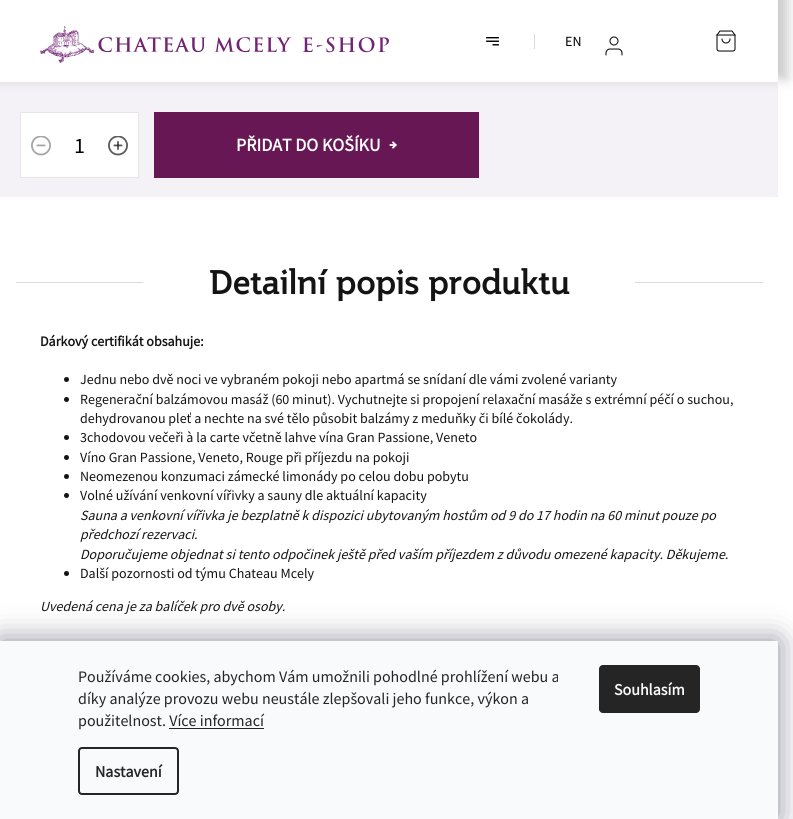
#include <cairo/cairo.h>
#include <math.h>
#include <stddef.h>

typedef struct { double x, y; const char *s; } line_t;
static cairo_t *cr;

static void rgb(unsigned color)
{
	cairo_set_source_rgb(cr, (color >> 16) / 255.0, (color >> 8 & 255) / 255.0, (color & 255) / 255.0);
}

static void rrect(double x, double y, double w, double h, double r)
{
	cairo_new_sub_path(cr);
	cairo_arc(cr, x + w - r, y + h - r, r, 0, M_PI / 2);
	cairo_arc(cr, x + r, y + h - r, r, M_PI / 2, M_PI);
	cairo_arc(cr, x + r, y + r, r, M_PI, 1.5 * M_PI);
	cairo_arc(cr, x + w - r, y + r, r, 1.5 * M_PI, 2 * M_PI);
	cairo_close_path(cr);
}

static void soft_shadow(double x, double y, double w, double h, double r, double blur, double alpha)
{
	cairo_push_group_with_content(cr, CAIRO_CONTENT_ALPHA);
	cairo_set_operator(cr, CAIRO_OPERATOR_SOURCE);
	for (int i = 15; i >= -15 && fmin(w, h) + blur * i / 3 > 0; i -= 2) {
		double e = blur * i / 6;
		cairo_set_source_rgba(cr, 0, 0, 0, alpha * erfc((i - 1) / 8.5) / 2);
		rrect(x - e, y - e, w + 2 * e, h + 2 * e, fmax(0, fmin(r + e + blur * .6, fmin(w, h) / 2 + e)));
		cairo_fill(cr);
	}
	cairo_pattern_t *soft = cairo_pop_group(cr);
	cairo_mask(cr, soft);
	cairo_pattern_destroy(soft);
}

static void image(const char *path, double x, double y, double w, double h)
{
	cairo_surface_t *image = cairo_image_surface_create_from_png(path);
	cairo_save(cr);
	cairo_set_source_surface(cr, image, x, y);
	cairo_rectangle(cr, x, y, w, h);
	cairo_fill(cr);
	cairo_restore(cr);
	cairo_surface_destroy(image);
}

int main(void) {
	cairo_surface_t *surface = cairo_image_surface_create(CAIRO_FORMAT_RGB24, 793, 819);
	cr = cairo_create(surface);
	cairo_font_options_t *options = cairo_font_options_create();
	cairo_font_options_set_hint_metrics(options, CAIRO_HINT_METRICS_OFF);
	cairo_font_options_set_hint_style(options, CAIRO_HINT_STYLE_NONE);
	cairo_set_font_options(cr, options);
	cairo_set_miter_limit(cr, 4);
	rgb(0xffffff);
	cairo_paint(cr);
	rgb(0xf5f2f7);
	cairo_rectangle(cr, 0, 82, 778, 115);
	cairo_fill(cr);
	rgb(0x000000);
	soft_shadow(-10, -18, 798, 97, 0, 6, 0.2);
	rgb(0xffffff);
	cairo_rectangle(cr, 0, 0, 778, 82);
	cairo_fill(cr);
	image("img/1.png", 40, 26, 349, 37);
	image("img/2.png", 716, 30, 20, 22);
	image("img/3.png", 486, 37, 13, 9);
	rgb(0xd9d9d9);
	cairo_rectangle(cr, 534, 34, 1, 15);
	cairo_fill(cr);
	image("img/4.png", 605, 36, 18, 20);
	rgb(0xffffff);
	cairo_rectangle(cr, 20.5, 112.5, 118, 65);
	cairo_fill_preserve(cr);
	rgb(0xe6e6e6);
	cairo_set_line_width(cr, 1);
	cairo_stroke(cr);
	image("img/5.png", 31, 136, 20, 20);
	image("img/6.png", 108, 136, 20, 20);
	rgb(0x681755);
	cairo_rectangle(cr, 154, 112, 325, 66);
	cairo_fill(cr);
	image("img/7.png", 389, 141, 8, 8);
	rgb(0xd9d9d9);
	cairo_rectangle(cr, 16, 282, 747, 1);
	cairo_fill(cr);
	rgb(0xffffff);
	cairo_rectangle(cr, 143, 282, 492, 1);
	cairo_fill(cr);
	rgb(0x141414);
	cairo_arc(cr, 66.5, 379.5, 2.5, 0, 2 * M_PI);
	cairo_fill(cr);
	cairo_arc(cr, 66.5, 399.5, 2.5, 0, 2 * M_PI);
	cairo_fill(cr);
	cairo_arc(cr, 66.5, 437.5, 2.5, 0, 2 * M_PI);
	cairo_fill(cr);
	cairo_arc(cr, 66.5, 457.5, 2.5, 0, 2 * M_PI);
	cairo_fill(cr);
	cairo_arc(cr, 66.5, 476.5, 2.5, 0, 2 * M_PI);
	cairo_fill(cr);
	cairo_arc(cr, 66.5, 495.5, 2.5, 0, 2 * M_PI);
	cairo_fill(cr);
	cairo_arc(cr, 66.5, 573.5, 2.5, 0, 2 * M_PI);
	cairo_fill(cr);
	rgb(0x1b1939);
	soft_shadow(0, 641, 778, 178, 0, 15, 0.5);
	rgb(0xf8fafb);
	cairo_rectangle(cr, 0, 641, 778, 178);
	cairo_fill(cr);
	rgb(0x252525);
	cairo_rectangle(cr, 169, 728, 95, 1);
	cairo_fill(cr);
	rrect(79, 748, 99, 46, 3);
	cairo_set_line_width(cr, 2);
	cairo_stroke(cr);
	rrect(599, 665, 101, 48, 4);
	cairo_fill(cr);
	cairo_select_font_face(cr, "Source Sans Pro", CAIRO_FONT_SLANT_NORMAL, CAIRO_FONT_WEIGHT_NORMAL);
	cairo_set_font_size(cr, 14);
	rgb(0x000000);
	cairo_move_to(cr, 565, 46);
	cairo_show_text(cr, "EN");
	cairo_set_font_size(cr, 22);
	cairo_move_to(cr, 74, 153);
	cairo_show_text(cr, "1");
	cairo_select_font_face(cr, "Source Sans Pro", CAIRO_FONT_SLANT_NORMAL, CAIRO_FONT_WEIGHT_BOLD);
	cairo_set_font_size(cr, 18);
	rgb(0xffffff);
	cairo_move_to(cr, 236, 151);
	cairo_show_text(cr, "PŘIDAT DO KOŠÍKU");
	cairo_select_font_face(cr, "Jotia", CAIRO_FONT_SLANT_NORMAL, CAIRO_FONT_WEIGHT_BOLD);
	cairo_set_font_size(cr, 32);
	rgb(0x141414);
	cairo_move_to(cr, 209, 294);
	cairo_show_text(cr, "Detailní popis produktu");
	cairo_select_font_face(cr, "Source Sans Pro", CAIRO_FONT_SLANT_NORMAL, CAIRO_FONT_WEIGHT_BOLD);
	cairo_set_font_size(cr, 14);
	cairo_move_to(cr, 40, 346);
	cairo_show_text(cr, "Dárkový certifikát obsahuje:");
	cairo_select_font_face(cr, "Source Sans Pro", CAIRO_FONT_SLANT_NORMAL, CAIRO_FONT_WEIGHT_NORMAL);
	{
		static const line_t items[] = {
			{80, 384, "Jednu nebo dvě noci ve vybraném pokoji nebo apartmá se snídaní dle vámi zvolené varianty"},
			{80, 404, "Regenerační balzámovou masáž (60 minut). Vychutnejte si propojení relaxační masáže s extrémní péčí o suchou,"},
			{80, 423, "dehydrovanou pleť a nechte na své tělo působit balzámy z meduňky či bílé čokolády."},
			{80, 442, "3chodovou večeři à la carte včetně lahve vína Gran Passione, Veneto"},
			{80, 462, "Víno Gran Passione, Veneto, Rouge při příjezdu na pokoji"},
			{80, 481, "Neomezenou konzumaci zámecké limonády po celou dobu pobytu"},
			{80, 500, "Volné užívání venkovní vířivky a sauny dle aktuální kapacity"},
		};
		for (size_t i = 0; i < sizeof items / sizeof *items; i++) {
			cairo_move_to(cr, items[i].x, items[i].y);
			cairo_show_text(cr, items[i].s);
		}
	}
	cairo_select_font_face(cr, "Source Sans Pro", CAIRO_FONT_SLANT_ITALIC, CAIRO_FONT_WEIGHT_NORMAL);
	{
		static const line_t items[] = {
			{80, 520, "Sauna a venkovní vířivka je bezplatně k dispozici ubytovaným hostům od 9 do 17 hodin na 60 minut pouze po"},
			{80, 539, "předchozí rezervaci."},
			{80, 559, "Doporučujeme objednat si tento odpočinek ještě před vaším příjezdem z důvodu omezené kapacity. Děkujeme."},
		};
		for (size_t i = 0; i < sizeof items / sizeof *items; i++) {
			cairo_move_to(cr, items[i].x, items[i].y);
			cairo_show_text(cr, items[i].s);
		}
	}
	cairo_select_font_face(cr, "Source Sans Pro", CAIRO_FONT_SLANT_NORMAL, CAIRO_FONT_WEIGHT_NORMAL);
	cairo_move_to(cr, 80, 578);
	cairo_show_text(cr, "Další pozornosti od týmu Chateau Mcely");
	cairo_select_font_face(cr, "Source Sans Pro", CAIRO_FONT_SLANT_ITALIC, CAIRO_FONT_WEIGHT_NORMAL);
	cairo_move_to(cr, 40, 611);
	cairo_show_text(cr, "Uvedená cena je za balíček pro dvě osoby.");
	cairo_select_font_face(cr, "Source Sans Pro", CAIRO_FONT_SLANT_NORMAL, CAIRO_FONT_WEIGHT_NORMAL);
	cairo_set_font_size(cr, 16);
	rgb(0x252525);
	{
		static const line_t items[] = {
			{78, 682, "Používáme cookies, abychom Vám umožnili pohodlné prohlížení webu a"},
			{78, 704, "díky analýze provozu webu neustále zlepšovali jeho funkce, výkon a"},
			{78, 726, "použitelnost. Více informací"},
		};
		for (size_t i = 0; i < sizeof items / sizeof *items; i++) {
			cairo_move_to(cr, items[i].x, items[i].y);
			cairo_show_text(cr, items[i].s);
		}
	}
	cairo_select_font_face(cr, "Source Sans Pro", CAIRO_FONT_SLANT_NORMAL, CAIRO_FONT_WEIGHT_BOLD);
	cairo_move_to(cr, 95, 777);
	cairo_show_text(cr, "Nastavení");
	rgb(0xf8fafb);
	cairo_move_to(cr, 614, 695);
	cairo_show_text(cr, "Souhlasím");
	cairo_surface_write_to_png(surface, "page.png");
	cairo_font_options_destroy(options);
	cairo_destroy(cr);
	cairo_surface_destroy(surface);
	return 0;
}
